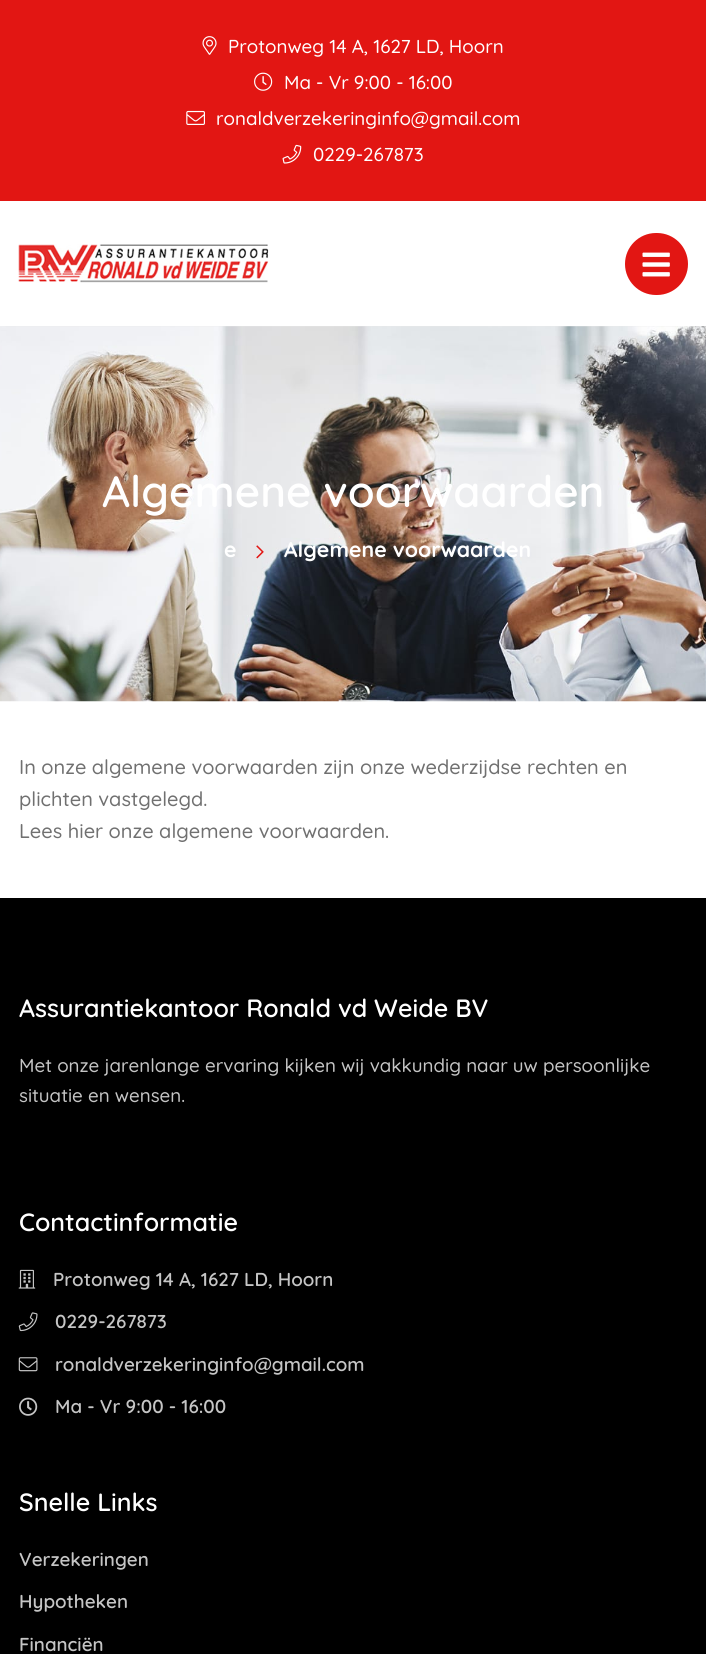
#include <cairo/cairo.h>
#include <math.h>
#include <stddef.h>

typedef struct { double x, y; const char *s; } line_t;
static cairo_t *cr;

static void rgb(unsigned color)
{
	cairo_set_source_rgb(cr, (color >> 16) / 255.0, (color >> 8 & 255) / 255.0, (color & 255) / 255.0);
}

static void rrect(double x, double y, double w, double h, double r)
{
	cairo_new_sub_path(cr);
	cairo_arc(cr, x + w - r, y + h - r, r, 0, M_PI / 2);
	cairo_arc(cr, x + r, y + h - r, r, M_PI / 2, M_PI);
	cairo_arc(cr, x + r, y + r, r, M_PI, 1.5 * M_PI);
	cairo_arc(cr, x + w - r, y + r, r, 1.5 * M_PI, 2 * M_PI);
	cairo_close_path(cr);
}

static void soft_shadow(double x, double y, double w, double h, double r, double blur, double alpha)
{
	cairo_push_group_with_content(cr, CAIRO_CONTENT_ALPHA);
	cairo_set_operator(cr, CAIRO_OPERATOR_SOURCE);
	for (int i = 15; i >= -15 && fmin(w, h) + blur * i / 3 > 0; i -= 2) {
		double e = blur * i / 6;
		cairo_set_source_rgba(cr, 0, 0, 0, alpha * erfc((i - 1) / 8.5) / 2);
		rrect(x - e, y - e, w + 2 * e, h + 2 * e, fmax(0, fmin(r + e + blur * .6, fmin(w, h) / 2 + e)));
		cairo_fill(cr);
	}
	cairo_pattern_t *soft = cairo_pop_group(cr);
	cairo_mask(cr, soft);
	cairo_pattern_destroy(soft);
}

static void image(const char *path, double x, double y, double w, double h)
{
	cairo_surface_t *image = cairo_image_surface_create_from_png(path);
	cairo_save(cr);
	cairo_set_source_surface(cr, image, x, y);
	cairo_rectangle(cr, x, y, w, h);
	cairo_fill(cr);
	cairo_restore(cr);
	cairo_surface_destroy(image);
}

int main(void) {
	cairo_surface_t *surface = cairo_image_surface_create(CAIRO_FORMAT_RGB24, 706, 1654);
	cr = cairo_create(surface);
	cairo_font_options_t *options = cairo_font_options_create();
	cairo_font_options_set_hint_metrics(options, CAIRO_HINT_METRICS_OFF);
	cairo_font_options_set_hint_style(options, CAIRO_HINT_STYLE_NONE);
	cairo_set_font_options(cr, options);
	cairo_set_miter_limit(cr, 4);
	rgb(0xffffff);
	cairo_paint(cr);
	rgb(0xe21613);
	cairo_rectangle(cr, 0, 0, 706, 201);
	cairo_fill(cr);
	image("img/1.png", 202, 36, 15, 19);
	image("img/2.png", 254, 72, 19, 19);
	image("img/3.png", 186, 110, 19, 15);
	image("img/4.png", 282, 144, 20, 20);
	cairo_save(cr);
	cairo_rectangle(cr, 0, 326, 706, 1);
	cairo_clip(cr);
	rgb(0x000000);
	soft_shadow(0, 211, 706, 125, 0, 9.5, 0.1);
	cairo_restore(cr);
	image("img/5.png", 18, 244, 251, 39);
	rrect(625, 233, 63, 62, 31);
	cairo_fill(cr);
	image("img/6.png", 642, 252, 28, 25);
	image("img/7.png", 0, 326, 706, 376);
	image("img/8.png", 256, 545, 8, 14);
	rgb(0x000000);
	cairo_rectangle(cr, 0, 898, 706, 756);
	cairo_fill(cr);
	image("img/9.png", 18, 1269, 18, 20);
	image("img/10.png", 18, 1312, 20, 20);
	image("img/11.png", 18, 1357, 20, 15);
	image("img/12.png", 19, 1397, 19, 19);
	cairo_select_font_face(cr, "Quicksand Medium", CAIRO_FONT_SLANT_NORMAL, CAIRO_FONT_WEIGHT_NORMAL);
	cairo_set_font_size(cr, 18.75);
	rgb(0xffffff);
	{
		static const line_t items[] = {
			{228, 53, "Protonweg 14 A, 1627 LD, Hoorn"},
			{284, 89, "Ma - Vr 9:00 - 16:00"},
			{216, 125, "ronaldverzekeringinfo@gmail.com"},
			{313, 161, "0229-267873"},
		};
		for (size_t i = 0; i < sizeof items / sizeof *items; i++) {
			cairo_move_to(cr, items[i].x, items[i].y);
			cairo_show_text(cr, items[i].s);
		}
	}
	cairo_select_font_face(cr, "Quicksand SemiBold", CAIRO_FONT_SLANT_NORMAL, CAIRO_FONT_WEIGHT_NORMAL);
	cairo_set_font_size(cr, 43.75);
	cairo_move_to(cr, 102, 507);
	cairo_show_text(cr, "Algemene voorwaarden");
	cairo_select_font_face(cr, "Quicksand", CAIRO_FONT_SLANT_NORMAL, CAIRO_FONT_WEIGHT_BOLD);
	cairo_set_font_size(cr, 21.25);
	cairo_move_to(cr, 224, 557);
	cairo_show_text(cr, "e");
	cairo_move_to(cr, 284, 557);
	cairo_show_text(cr, "Algemene voorwaarden");
	cairo_select_font_face(cr, "Quicksand Medium", CAIRO_FONT_SLANT_NORMAL, CAIRO_FONT_WEIGHT_NORMAL);
	cairo_set_font_size(cr, 20);
	rgb(0x707070);
	{
		static const line_t items[] = {
			{19, 774, "In onze algemene voorwaarden zijn onze wederzijdse rechten en"},
			{19, 806, "plichten vastgelegd."},
			{19, 838, "Lees hier onze algemene voorwaarden."},
		};
		for (size_t i = 0; i < sizeof items / sizeof *items; i++) {
			cairo_move_to(cr, items[i].x, items[i].y);
			cairo_show_text(cr, items[i].s);
		}
	}
	cairo_select_font_face(cr, "Quicksand SemiBold", CAIRO_FONT_SLANT_NORMAL, CAIRO_FONT_WEIGHT_NORMAL);
	cairo_set_font_size(cr, 25);
	rgb(0xffffff);
	cairo_move_to(cr, 19, 1017);
	cairo_show_text(cr, "Assurantiekantoor Ronald vd Weide BV");
	cairo_select_font_face(cr, "Quicksand Medium", CAIRO_FONT_SLANT_NORMAL, CAIRO_FONT_WEIGHT_NORMAL);
	cairo_set_font_size(cr, 18.75);
	rgb(0xc5c5c5);
	cairo_move_to(cr, 19, 1072);
	cairo_show_text(cr, "Met onze jarenlange ervaring kijken wij vakkundig naar uw persoonlijke");
	cairo_move_to(cr, 19, 1102);
	cairo_show_text(cr, "situatie en wensen.");
	cairo_select_font_face(cr, "Quicksand SemiBold", CAIRO_FONT_SLANT_NORMAL, CAIRO_FONT_WEIGHT_NORMAL);
	cairo_set_font_size(cr, 25);
	rgb(0xffffff);
	cairo_move_to(cr, 19, 1231);
	cairo_show_text(cr, "Contactinformatie");
	cairo_set_font_size(cr, 18.75);
	rgb(0xc5c5c5);
	{
		static const line_t items[] = {
			{53, 1286, "Protonweg 14 A, 1627 LD, Hoorn"},
			{55, 1328, "0229-267873"},
			{55, 1371, "ronaldverzekeringinfo@gmail.com"},
			{55, 1413, "Ma - Vr 9:00 - 16:00"},
		};
		for (size_t i = 0; i < sizeof items / sizeof *items; i++) {
			cairo_move_to(cr, items[i].x, items[i].y);
			cairo_show_text(cr, items[i].s);
		}
	}
	cairo_set_font_size(cr, 25);
	rgb(0xffffff);
	cairo_move_to(cr, 19, 1511);
	cairo_show_text(cr, "Snelle Links");
	cairo_set_font_size(cr, 18.75);
	rgb(0xc5c5c5);
	{
		static const line_t items[] = {
			{19, 1566, "Verzekeringen"},
			{19, 1608, "Hypotheken"},
			{19, 1651, "Financiën"},
		};
		for (size_t i = 0; i < sizeof items / sizeof *items; i++) {
			cairo_move_to(cr, items[i].x, items[i].y);
			cairo_show_text(cr, items[i].s);
		}
	}
	cairo_surface_write_to_png(surface, "page.png");
	cairo_font_options_destroy(options);
	cairo_destroy(cr);
	cairo_surface_destroy(surface);
	return 0;
}
